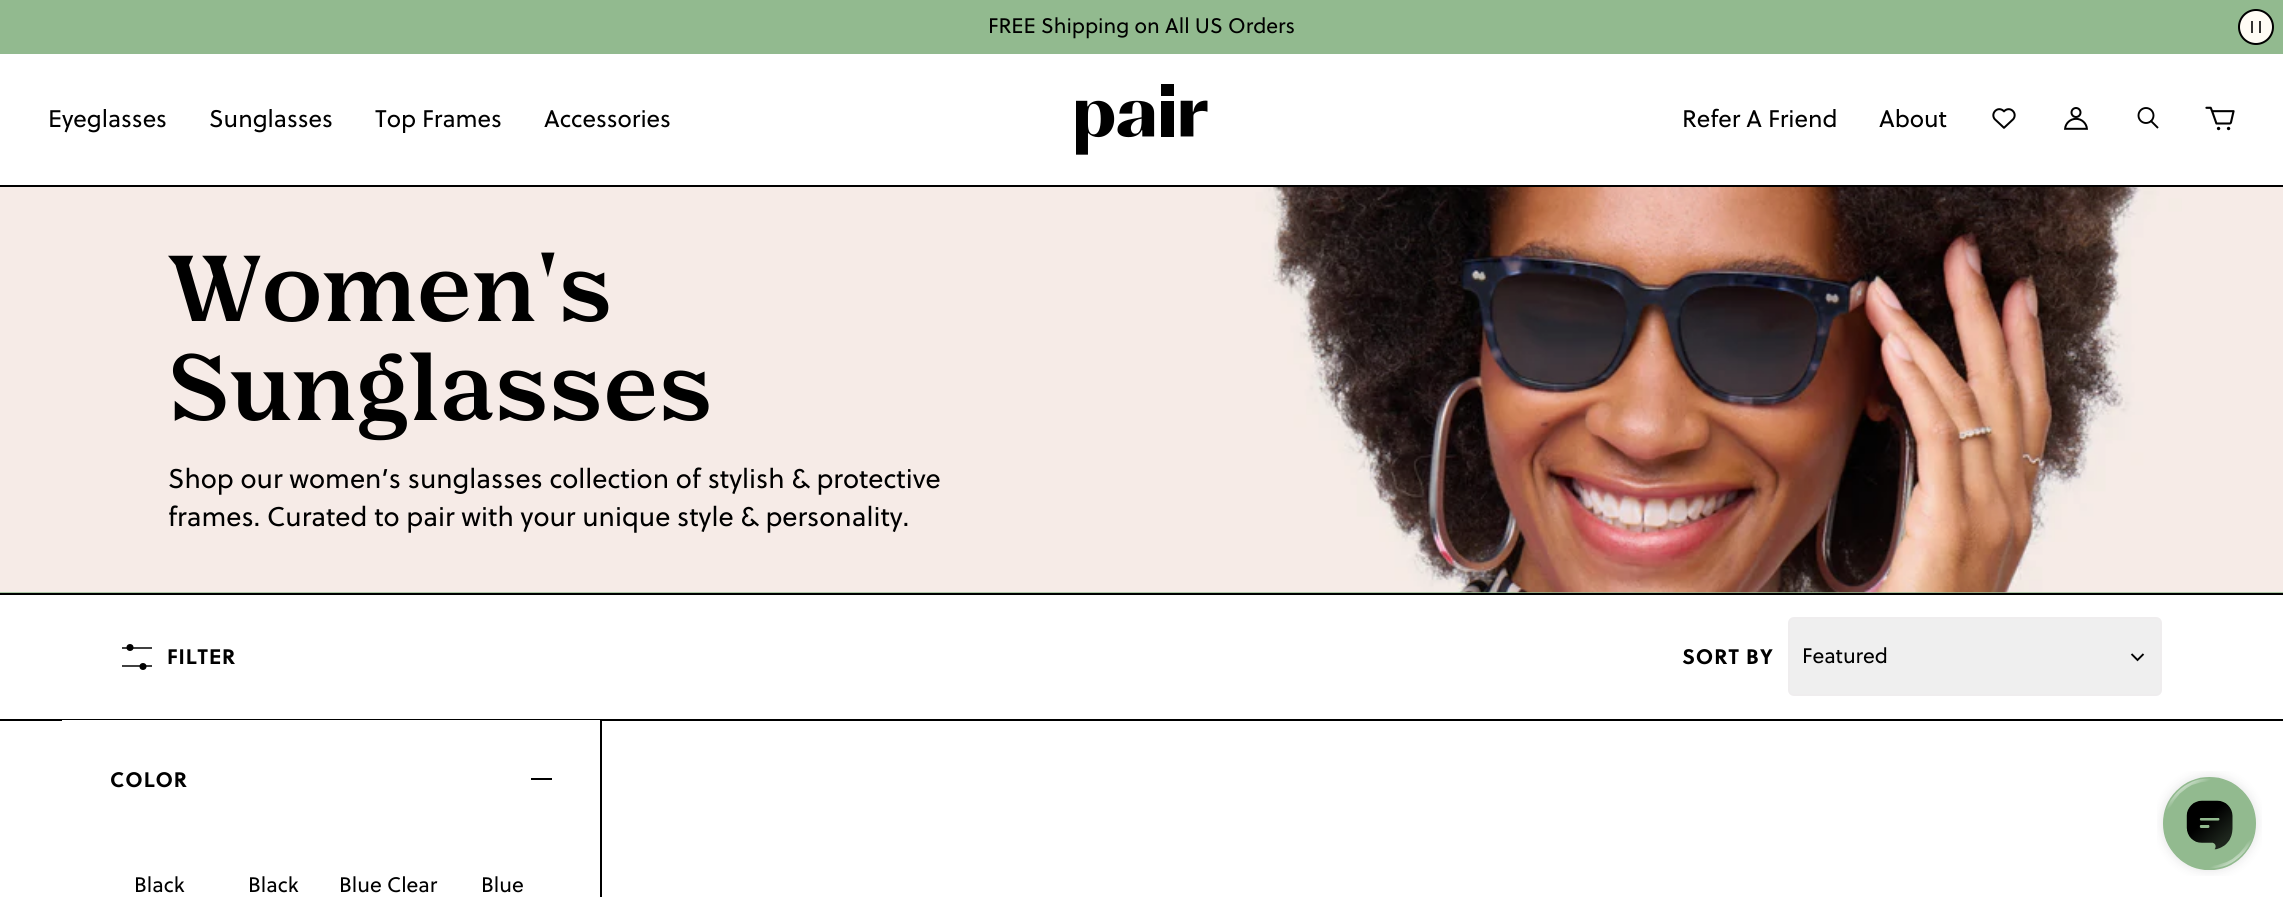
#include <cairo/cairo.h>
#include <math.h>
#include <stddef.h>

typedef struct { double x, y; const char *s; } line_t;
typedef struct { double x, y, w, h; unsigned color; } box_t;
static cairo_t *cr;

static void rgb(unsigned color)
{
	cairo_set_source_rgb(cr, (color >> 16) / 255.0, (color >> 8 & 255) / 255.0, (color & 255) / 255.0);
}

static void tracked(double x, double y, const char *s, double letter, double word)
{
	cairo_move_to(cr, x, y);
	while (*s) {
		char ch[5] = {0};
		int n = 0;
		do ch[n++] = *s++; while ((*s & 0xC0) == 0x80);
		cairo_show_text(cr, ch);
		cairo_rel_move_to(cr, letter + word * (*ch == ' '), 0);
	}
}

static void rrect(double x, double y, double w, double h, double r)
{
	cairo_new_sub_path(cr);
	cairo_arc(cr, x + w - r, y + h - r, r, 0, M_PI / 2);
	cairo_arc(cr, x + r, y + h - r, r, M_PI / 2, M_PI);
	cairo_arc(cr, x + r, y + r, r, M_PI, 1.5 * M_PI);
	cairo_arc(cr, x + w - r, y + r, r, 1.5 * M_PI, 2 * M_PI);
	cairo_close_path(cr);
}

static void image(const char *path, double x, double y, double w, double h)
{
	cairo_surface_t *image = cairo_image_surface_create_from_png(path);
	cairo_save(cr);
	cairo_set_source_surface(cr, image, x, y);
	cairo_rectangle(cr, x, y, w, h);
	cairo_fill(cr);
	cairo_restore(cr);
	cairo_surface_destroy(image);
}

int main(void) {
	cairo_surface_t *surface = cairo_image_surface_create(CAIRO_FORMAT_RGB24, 2283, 897);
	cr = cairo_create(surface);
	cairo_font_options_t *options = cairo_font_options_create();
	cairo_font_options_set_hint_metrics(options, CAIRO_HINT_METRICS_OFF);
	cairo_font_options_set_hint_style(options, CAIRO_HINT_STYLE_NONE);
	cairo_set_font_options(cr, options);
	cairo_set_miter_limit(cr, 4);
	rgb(0xffffff);
	cairo_paint(cr);
	rgb(0x000000);
	cairo_rectangle(cr, 0, 185, 2283, 2);
	cairo_fill(cr);
	rgb(0x92ba8f);
	cairo_rectangle(cr, 0, 0, 2283, 54);
	cairo_fill(cr);
	rgb(0xfffcf5);
	cairo_arc(cr, 2256, 27, 17, 0, 2 * M_PI);
	cairo_fill_preserve(cr);
	rgb(0x000000);
	cairo_stroke(cr);
	rgb(0x333231);
	cairo_rectangle(cr, 2251, 21, 2, 12);
	cairo_fill(cr);
	cairo_rectangle(cr, 2259, 21, 2, 12);
	cairo_fill(cr);
	image("img/1.png", 1076, 84, 132, 71);
	image("img/2.png", 1992, 108, 24, 21);
	image("img/3.png", 2064, 107, 24, 23);
	cairo_arc(cr, 2146, 115.5, 7.5, 0, 2 * M_PI);
	rgb(0x000000);
	cairo_set_line_width(cr, 1.9);
	cairo_stroke(cr);
	cairo_new_path(cr);
	cairo_move_to(cr, 2150.5, 120.5);
	cairo_line_to(cr, 2158, 128);
	cairo_stroke(cr);
	image("img/4.png", 2205, 106, 30, 25);
	rgb(0x92ba8f);
	cairo_rectangle(cr, 0, 592, 2283, 1);
	cairo_fill(cr);
	image("img/5.png", 0, 187, 2283, 406);
	{
		static const box_t items[] = {
			{0, 593, 2283, 2, 0x000000},
			{122, 647, 30, 2, 0x404040},
			{122, 665, 30, 2, 0x404040},
		};
		for (size_t i = 0; i < sizeof items / sizeof *items; i++) {
			rgb(items[i].color);
			cairo_rectangle(cr, items[i].x, items[i].y, items[i].w, items[i].h);
			cairo_fill(cr);
		}
	}
	rgb(0x000000);
	cairo_arc(cr, 130, 647.5, 3.5, 0, 2 * M_PI);
	cairo_fill(cr);
	cairo_arc(cr, 143, 666.5, 3.5, 0, 2 * M_PI);
	cairo_fill(cr);
	rgb(0xefefef);
	rrect(1789, 618, 372, 77, 5);
	cairo_fill_preserve(cr);
	rgb(0xefedee);
	cairo_set_line_width(cr, 2);
	cairo_stroke(cr);
	cairo_new_path(cr);
	cairo_move_to(cr, 2143.5, 654);
	cairo_line_to(cr, 2137.5, 660);
	cairo_line_to(cr, 2131.5, 654);
	rgb(0x000000);
	cairo_set_line_width(cr, 1.9);
	cairo_stroke(cr);
	{
		static const box_t items[] = {
			{0, 719, 2283, 2, 0x000000},
			{62, 720, 538, 1, 0xffffff},
			{600, 720, 2, 177, 0x000000},
			{531, 778, 21, 2, 0x000000},
		};
		for (size_t i = 0; i < sizeof items / sizeof *items; i++) {
			rgb(items[i].color);
			cairo_rectangle(cr, items[i].x, items[i].y, items[i].w, items[i].h);
			cairo_fill(cr);
		}
	}
	image("img/6.png", 2157, 771, 105, 105);
	cairo_select_font_face(cr, "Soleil", CAIRO_FONT_SLANT_NORMAL, CAIRO_FONT_WEIGHT_NORMAL);
	cairo_set_font_size(cr, 21);
	cairo_move_to(cr, 988, 33);
	cairo_show_text(cr, "FREE Shipping on All US Orders");
	cairo_set_font_size(cr, 24);
	{
		static const line_t items[] = {
			{48, 127, "Eyeglasses"},
			{209, 127, "Sunglasses"},
			{375, 127, "Top Frames"},
			{544, 127, "Accessories"},
			{1682, 127, "Refer A Friend"},
			{1879, 127, "About"},
		};
		for (size_t i = 0; i < sizeof items / sizeof *items; i++) {
			cairo_move_to(cr, items[i].x, items[i].y);
			cairo_show_text(cr, items[i].s);
		}
	}
	cairo_select_font_face(cr, "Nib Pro", CAIRO_FONT_SLANT_NORMAL, CAIRO_FONT_WEIGHT_BOLD);
	cairo_set_font_size(cr, 90);
	cairo_move_to(cr, 168, 321);
	cairo_show_text(cr, "Women's");
	cairo_move_to(cr, 168, 420);
	cairo_show_text(cr, "Sunglasses");
	cairo_select_font_face(cr, "Soleil", CAIRO_FONT_SLANT_NORMAL, CAIRO_FONT_WEIGHT_NORMAL);
	cairo_set_font_size(cr, 27);
	cairo_move_to(cr, 168, 488);
	cairo_show_text(cr, "Shop our women’s sunglasses collection of stylish & protective");
	cairo_move_to(cr, 168, 526);
	cairo_show_text(cr, "frames. Curated to pair with your unique style & personality.");
	cairo_select_font_face(cr, "Soleil", CAIRO_FONT_SLANT_NORMAL, CAIRO_FONT_WEIGHT_BOLD);
	cairo_set_font_size(cr, 21);
	tracked(167, 664, "FILTER", 1, 0);
	tracked(1682, 664, "SORT BY", 1, 0);
	cairo_select_font_face(cr, "Soleil", CAIRO_FONT_SLANT_NORMAL, CAIRO_FONT_WEIGHT_NORMAL);
	cairo_move_to(cr, 1802, 663);
	cairo_show_text(cr, "Featured");
	cairo_select_font_face(cr, "Soleil", CAIRO_FONT_SLANT_NORMAL, CAIRO_FONT_WEIGHT_BOLD);
	tracked(110, 787, "COLOR", 1, 0);
	cairo_select_font_face(cr, "Soleil", CAIRO_FONT_SLANT_NORMAL, CAIRO_FONT_WEIGHT_NORMAL);
	{
		static const line_t items[] = {
			{134, 892, "Black"},
			{248, 892, "Black"},
			{339, 892, "Blue Clear"},
			{481, 892, "Blue"},
		};
		for (size_t i = 0; i < sizeof items / sizeof *items; i++) {
			cairo_move_to(cr, items[i].x, items[i].y);
			cairo_show_text(cr, items[i].s);
		}
	}
	cairo_surface_write_to_png(surface, "page.png");
	cairo_font_options_destroy(options);
	cairo_destroy(cr);
	cairo_surface_destroy(surface);
	return 0;
}
